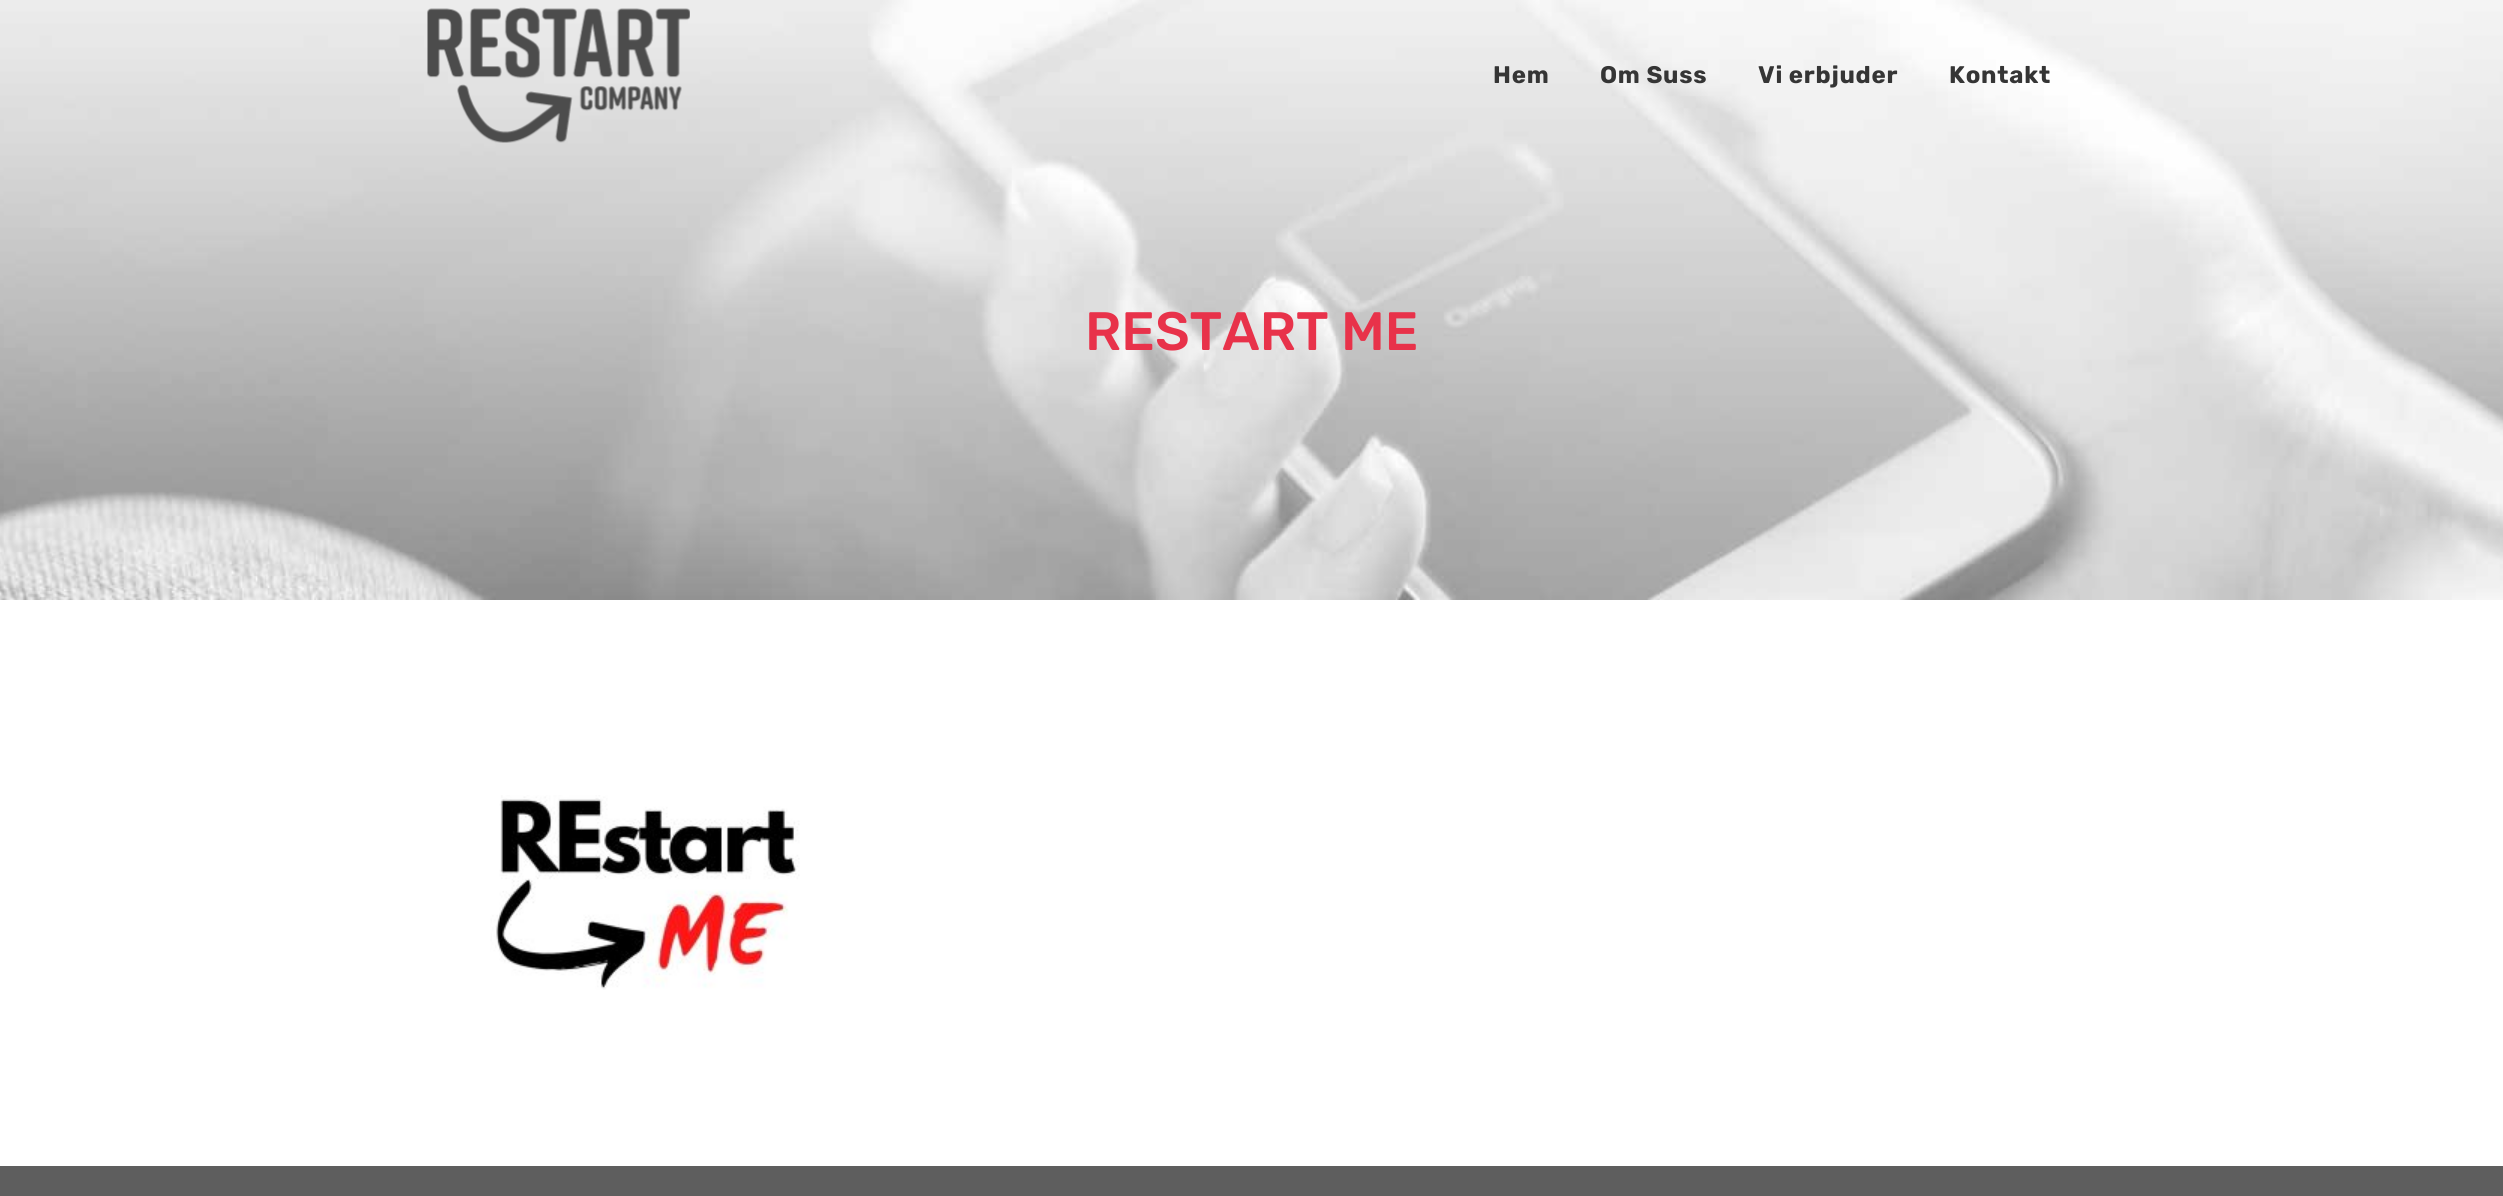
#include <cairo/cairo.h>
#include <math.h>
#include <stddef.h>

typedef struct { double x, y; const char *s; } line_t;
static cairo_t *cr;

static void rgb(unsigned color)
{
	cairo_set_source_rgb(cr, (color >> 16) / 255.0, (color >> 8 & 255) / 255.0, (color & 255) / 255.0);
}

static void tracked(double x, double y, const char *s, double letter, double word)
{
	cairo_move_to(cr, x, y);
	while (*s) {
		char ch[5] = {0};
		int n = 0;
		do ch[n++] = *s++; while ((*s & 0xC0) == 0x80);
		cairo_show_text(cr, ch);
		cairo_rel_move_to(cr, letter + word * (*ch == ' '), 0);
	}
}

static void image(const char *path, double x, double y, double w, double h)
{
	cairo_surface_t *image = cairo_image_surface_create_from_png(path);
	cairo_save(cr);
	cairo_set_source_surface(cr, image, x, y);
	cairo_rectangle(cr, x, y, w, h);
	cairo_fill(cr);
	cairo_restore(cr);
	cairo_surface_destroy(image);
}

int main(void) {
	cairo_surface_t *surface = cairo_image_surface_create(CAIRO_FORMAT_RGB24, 2503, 1196);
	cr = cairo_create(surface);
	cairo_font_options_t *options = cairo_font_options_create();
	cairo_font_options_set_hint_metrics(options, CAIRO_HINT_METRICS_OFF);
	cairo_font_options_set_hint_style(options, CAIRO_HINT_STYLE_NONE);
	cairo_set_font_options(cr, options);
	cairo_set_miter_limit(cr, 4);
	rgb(0xffffff);
	cairo_paint(cr);
	image("img/2.png", 0, 0, 2503, 600);
	image("img/1.png", 427, 7, 263, 136);
	image("img/3.png", 490, 795, 310, 195);
	rgb(0x5e5e5e);
	cairo_rectangle(cr, 0, 1166, 2503, 30);
	cairo_fill(cr);
	cairo_select_font_face(cr, "Rubik", CAIRO_FONT_SLANT_NORMAL, CAIRO_FONT_WEIGHT_BOLD);
	cairo_set_font_size(cr, 24);
	rgb(0x353535);
	{
		static const line_t items[] = {
			{1493, 83, "Hem"},
			{1600, 83, "Om Suss"},
			{1758, 83, "Vi erbjuder"},
			{1949, 83, "Kontakt"},
		};
		for (size_t i = 0; i < sizeof items / sizeof *items; i++) {
			tracked(items[i].x, items[i].y, items[i].s, 0.75, 0);
		}
	}
	cairo_select_font_face(cr, "Rubik Medium", CAIRO_FONT_SLANT_NORMAL, CAIRO_FONT_WEIGHT_NORMAL);
	cairo_set_font_size(cr, 54);
	rgb(0xe8324a);
	cairo_move_to(cr, 1085, 350);
	cairo_show_text(cr, "RESTART ME");
	cairo_surface_write_to_png(surface, "page.png");
	cairo_font_options_destroy(options);
	cairo_destroy(cr);
	cairo_surface_destroy(surface);
	return 0;
}
